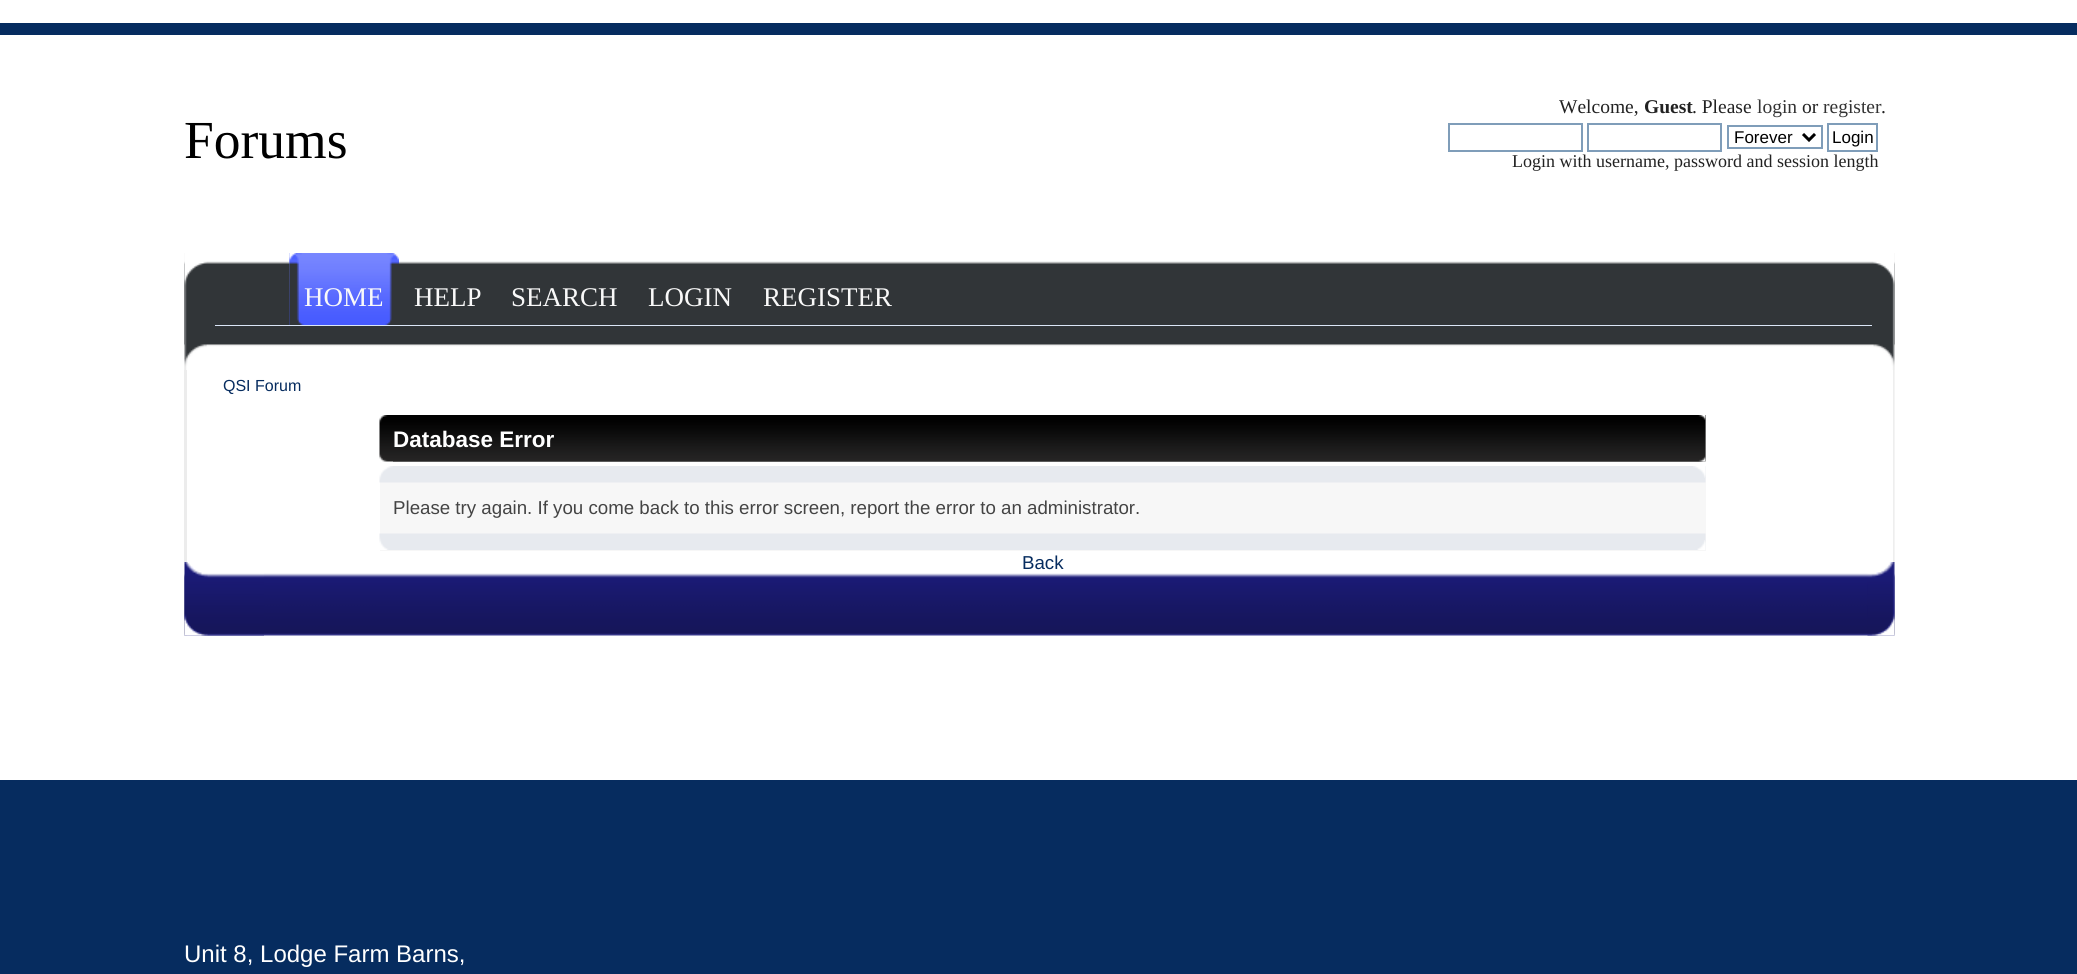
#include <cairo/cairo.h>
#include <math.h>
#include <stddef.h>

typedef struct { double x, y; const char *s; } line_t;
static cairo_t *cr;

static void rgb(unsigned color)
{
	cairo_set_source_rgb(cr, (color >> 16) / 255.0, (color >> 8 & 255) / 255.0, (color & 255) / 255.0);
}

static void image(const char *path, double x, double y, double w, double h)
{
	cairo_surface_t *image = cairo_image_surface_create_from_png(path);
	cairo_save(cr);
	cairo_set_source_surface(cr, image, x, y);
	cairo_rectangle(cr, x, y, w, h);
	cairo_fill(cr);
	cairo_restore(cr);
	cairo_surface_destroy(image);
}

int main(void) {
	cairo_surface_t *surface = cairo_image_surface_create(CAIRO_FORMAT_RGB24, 2077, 974);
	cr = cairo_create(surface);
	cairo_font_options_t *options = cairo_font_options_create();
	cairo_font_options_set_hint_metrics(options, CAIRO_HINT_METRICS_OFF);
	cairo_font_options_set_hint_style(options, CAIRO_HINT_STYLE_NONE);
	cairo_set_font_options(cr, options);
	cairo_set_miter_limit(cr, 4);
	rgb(0xffffff);
	cairo_paint(cr);
	rgb(0x062c5f);
	cairo_rectangle(cr, 0, 23, 2077, 12);
	cairo_fill(cr);
	cairo_rectangle(cr, 1449, 124, 133, 27);
	rgb(0x7f9db9);
	cairo_stroke(cr);
	cairo_rectangle(cr, 1588, 124, 133, 27);
	cairo_stroke(cr);
	cairo_rectangle(cr, 1728, 126, 94, 22);
	cairo_stroke(cr);
	cairo_new_path(cr);
	cairo_move_to(cr, 1803, 134);
	cairo_line_to(cr, 1809, 140);
	cairo_line_to(cr, 1815, 134);
	rgb(0x000000);
	cairo_set_line_width(cr, 3);
	cairo_stroke(cr);
	cairo_rectangle(cr, 1828, 124, 49, 27);
	rgb(0x7f9db9);
	cairo_set_line_width(cr, 2);
	cairo_stroke(cr);
	image("img/1.png", 1893, 253, 2, 383);
	rgb(0xececec);
	cairo_rectangle(cr, 184, 253, 3, 383);
	cairo_fill(cr);
	image("img/2.png", 184, 562, 1711, 74);
	image("img/3.png", 1867, 562, 28, 74);
	image("img/4.png", 184, 562, 80, 74);
	image("img/5.png", 184, 253, 1711, 117);
	image("img/6.png", 1873, 261, 22, 109);
	image("img/7.png", 184, 253, 23, 117);
	rgb(0xdbe6f7);
	cairo_rectangle(cr, 215, 325, 1657, 1);
	cairo_fill(cr);
	image("img/8.png", 215, 254, 1657, 71);
	image("img/9.png", 289, 253, 110, 72);
	image("img/10.png", 289, 253, 15, 72);
	image("img/11.png", 379, 415, 1327, 47);
	image("img/12.png", 393, 415, 1313, 47);
	rgb(0xf7f7f7);
	cairo_rectangle(cr, 380, 467, 1326, 84);
	cairo_fill(cr);
	image("img/13.png", 379, 466, 1327, 17);
	image("img/14.png", 1693, 466, 13, 12);
	image("img/15.png", 379, 533, 1327, 17);
	image("img/16.png", 1697, 540, 9, 10);
	rgb(0x062c5f);
	cairo_rectangle(cr, 0, 780, 2077, 194);
	cairo_fill(cr);
	cairo_select_font_face(cr, "Liberation Serif", CAIRO_FONT_SLANT_NORMAL, CAIRO_FONT_WEIGHT_NORMAL);
	cairo_set_font_size(cr, 53.5);
	rgb(0x000000);
	cairo_move_to(cr, 184, 158);
	cairo_show_text(cr, "Forums");
	cairo_set_font_size(cr, 19.5);
	rgb(0x222222);
	cairo_move_to(cr, 1559, 113);
	cairo_show_text(cr, "Welcome,");
	cairo_select_font_face(cr, "Liberation Serif", CAIRO_FONT_SLANT_NORMAL, CAIRO_FONT_WEIGHT_BOLD);
	cairo_move_to(cr, 1644, 113);
	cairo_show_text(cr, "Guest");
	cairo_select_font_face(cr, "Liberation Serif", CAIRO_FONT_SLANT_NORMAL, CAIRO_FONT_WEIGHT_NORMAL);
	cairo_move_to(cr, 1692, 113);
	cairo_show_text(cr, ". Please");
	rgb(0x333333);
	cairo_move_to(cr, 1757, 113);
	cairo_show_text(cr, "login");
	rgb(0x222222);
	cairo_move_to(cr, 1802, 113);
	cairo_show_text(cr, "or");
	rgb(0x333333);
	cairo_move_to(cr, 1823, 113);
	cairo_show_text(cr, "register");
	rgb(0x222222);
	cairo_move_to(cr, 1881, 113);
	cairo_show_text(cr, ".");
	cairo_select_font_face(cr, "Liberation Sans", CAIRO_FONT_SLANT_NORMAL, CAIRO_FONT_WEIGHT_NORMAL);
	cairo_set_font_size(cr, 17);
	rgb(0x000000);
	cairo_move_to(cr, 1734, 143);
	cairo_show_text(cr, "Forever");
	cairo_move_to(cr, 1832, 143);
	cairo_show_text(cr, "Login");
	cairo_select_font_face(cr, "Liberation Serif", CAIRO_FONT_SLANT_NORMAL, CAIRO_FONT_WEIGHT_NORMAL);
	cairo_set_font_size(cr, 18);
	rgb(0x222222);
	cairo_move_to(cr, 1512, 167);
	cairo_show_text(cr, "Login with username, password and session length");
	cairo_set_font_size(cr, 27);
	rgb(0xf9f9f9);
	{
		static const line_t items[] = {
			{304, 306, "HOME"},
			{414, 306, "HELP"},
			{511, 306, "SEARCH"},
			{648, 306, "LOGIN"},
			{763, 306, "REGISTER"},
		};
		for (size_t i = 0; i < sizeof items / sizeof *items; i++) {
			cairo_move_to(cr, items[i].x, items[i].y);
			cairo_show_text(cr, items[i].s);
		}
	}
	cairo_select_font_face(cr, "Liberation Sans", CAIRO_FONT_SLANT_NORMAL, CAIRO_FONT_WEIGHT_NORMAL);
	cairo_set_font_size(cr, 16);
	rgb(0x062c5f);
	cairo_move_to(cr, 223, 391);
	cairo_show_text(cr, "QSI Forum");
	cairo_select_font_face(cr, "Liberation Sans", CAIRO_FONT_SLANT_NORMAL, CAIRO_FONT_WEIGHT_BOLD);
	cairo_set_font_size(cr, 22.5);
	rgb(0xffffff);
	cairo_move_to(cr, 393, 447);
	cairo_show_text(cr, "Database Error");
	cairo_select_font_face(cr, "Liberation Sans", CAIRO_FONT_SLANT_NORMAL, CAIRO_FONT_WEIGHT_NORMAL);
	cairo_set_font_size(cr, 18.7);
	rgb(0x444444);
	cairo_move_to(cr, 393, 514);
	cairo_show_text(cr, "Please try again. If you come back to this error screen, report the error to an administrator.");
	rgb(0x062c5f);
	cairo_move_to(cr, 1022, 569);
	cairo_show_text(cr, "Back");
	cairo_set_font_size(cr, 24);
	rgb(0xffffff);
	cairo_move_to(cr, 184, 962);
	cairo_show_text(cr, "Unit 8, Lodge Farm Barns,");
	cairo_surface_write_to_png(surface, "page.png");
	cairo_font_options_destroy(options);
	cairo_destroy(cr);
	cairo_surface_destroy(surface);
	return 0;
}
